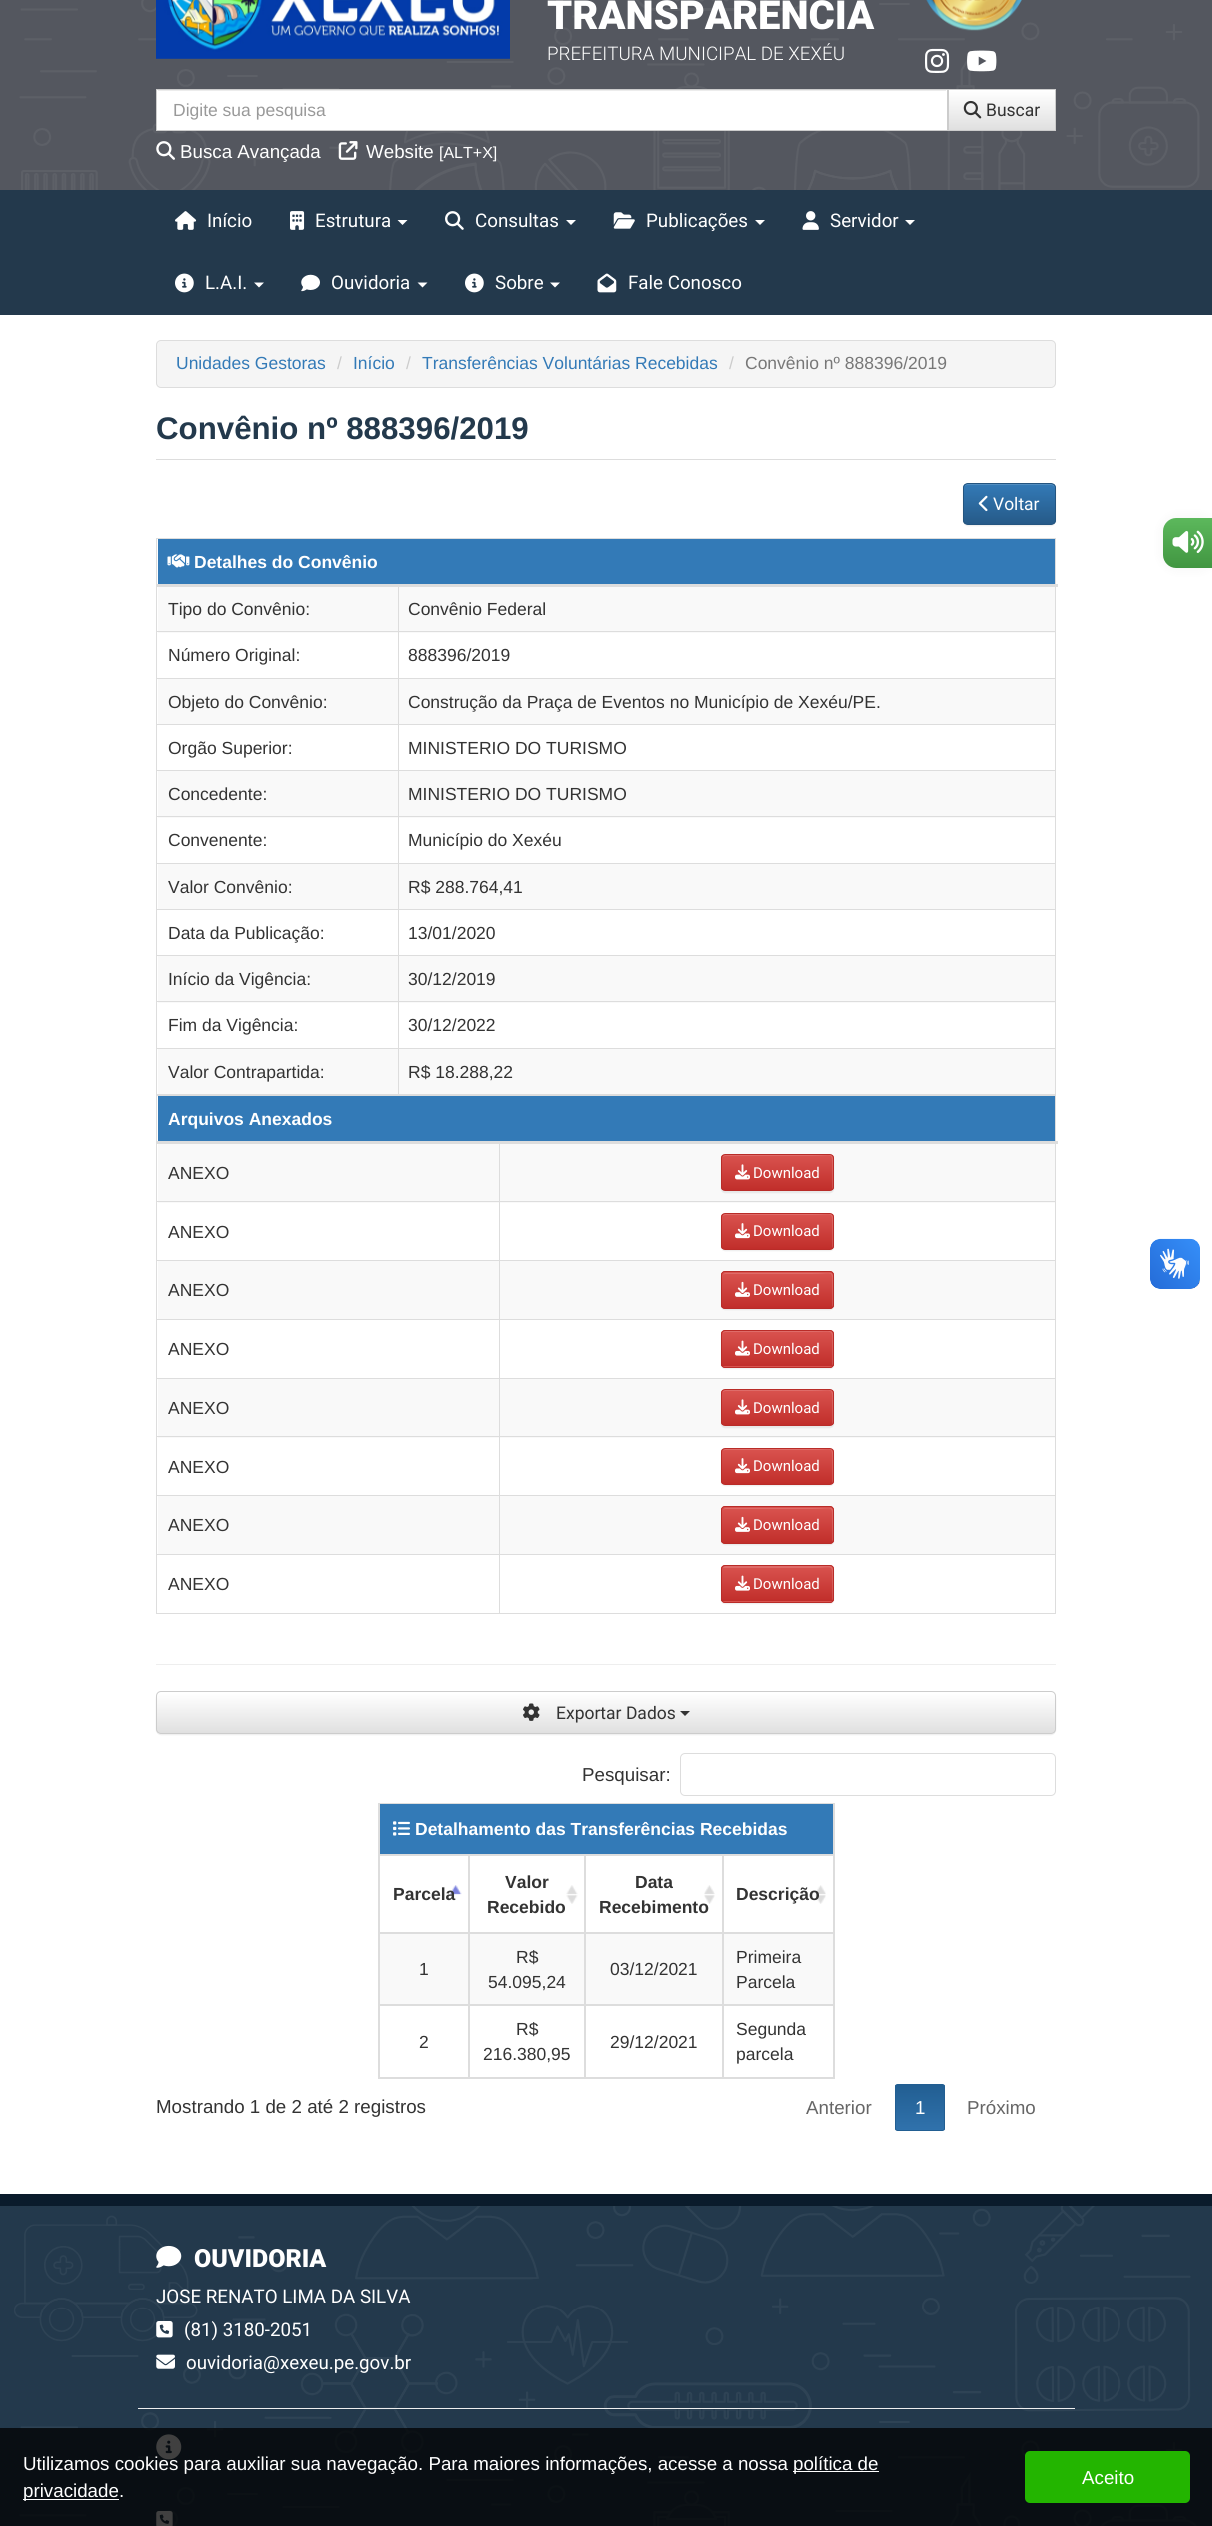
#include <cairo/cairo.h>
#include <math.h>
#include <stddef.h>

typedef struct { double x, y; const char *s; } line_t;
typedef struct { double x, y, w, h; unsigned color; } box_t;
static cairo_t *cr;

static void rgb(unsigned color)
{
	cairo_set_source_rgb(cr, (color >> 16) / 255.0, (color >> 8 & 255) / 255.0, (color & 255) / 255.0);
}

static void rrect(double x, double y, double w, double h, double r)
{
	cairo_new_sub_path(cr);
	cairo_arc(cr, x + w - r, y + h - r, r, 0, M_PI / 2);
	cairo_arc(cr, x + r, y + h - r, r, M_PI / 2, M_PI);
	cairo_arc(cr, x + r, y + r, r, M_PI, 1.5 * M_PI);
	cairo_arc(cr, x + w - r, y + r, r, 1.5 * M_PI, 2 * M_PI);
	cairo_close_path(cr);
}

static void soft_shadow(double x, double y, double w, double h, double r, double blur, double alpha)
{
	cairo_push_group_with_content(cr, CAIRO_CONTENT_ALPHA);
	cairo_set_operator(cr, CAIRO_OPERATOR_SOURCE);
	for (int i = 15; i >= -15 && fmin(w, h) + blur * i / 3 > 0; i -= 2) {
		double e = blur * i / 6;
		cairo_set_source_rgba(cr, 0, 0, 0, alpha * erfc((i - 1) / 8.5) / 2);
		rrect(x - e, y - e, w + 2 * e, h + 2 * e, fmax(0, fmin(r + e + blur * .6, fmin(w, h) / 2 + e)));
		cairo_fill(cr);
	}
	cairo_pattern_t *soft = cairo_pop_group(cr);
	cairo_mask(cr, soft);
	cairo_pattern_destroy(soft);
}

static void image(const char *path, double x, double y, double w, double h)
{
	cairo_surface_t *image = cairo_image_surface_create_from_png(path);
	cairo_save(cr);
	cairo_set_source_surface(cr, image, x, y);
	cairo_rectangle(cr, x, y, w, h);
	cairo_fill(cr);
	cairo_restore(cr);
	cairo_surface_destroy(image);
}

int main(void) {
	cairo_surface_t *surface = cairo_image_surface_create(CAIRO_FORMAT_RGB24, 1212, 2526);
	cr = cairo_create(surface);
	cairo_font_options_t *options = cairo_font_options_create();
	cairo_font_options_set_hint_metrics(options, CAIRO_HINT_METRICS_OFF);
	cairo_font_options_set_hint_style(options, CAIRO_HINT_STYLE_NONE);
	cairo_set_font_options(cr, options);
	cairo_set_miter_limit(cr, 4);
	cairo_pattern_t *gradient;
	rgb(0xffffff);
	cairo_paint(cr);
	rgb(0x54575f);
	cairo_rectangle(cr, 0, 0, 1212, 190);
	cairo_fill(cr);
	image("img/1.png", 19, 0, 1181, 190);
	image("img/2.png", 156, 0, 354, 59);
	image("img/3.png", 926, 0, 96, 31);
	image("img/4.png", 925, 48, 25, 25);
	image("img/5.png", 967, 50, 30, 22);
	rgb(0xffffff);
	cairo_rectangle(cr, 157, 90, 790, 40);
	cairo_fill(cr);
	rgb(0xececec);
	cairo_rectangle(cr, 158, 90, 788, 1);
	cairo_fill(cr);
	cairo_rectangle(cr, 156.5, 89.5, 791, 41);
	rgb(0xcccccc);
	cairo_set_line_width(cr, 1);
	cairo_stroke(cr);
	gradient = cairo_pattern_create_linear(1002, 90, 1002, 130);
	cairo_pattern_add_color_stop_rgba(gradient, 0, 1, 1, 1, 1);
	cairo_pattern_add_color_stop_rgba(gradient, 1, 0.878, 0.878, 0.878, 1);
	cairo_set_source(cr, gradient);
	cairo_pattern_destroy(gradient);
	cairo_rectangle(cr, 949, 90, 106, 40);
	cairo_fill(cr);
	cairo_rectangle(cr, 948.5, 89.5, 107, 41);
	rgb(0xcccccc);
	cairo_stroke(cr);
	image("img/6.png", 963, 100, 19, 19);
	image("img/7.png", 156, 141, 19, 19);
	image("img/8.png", 338, 141, 20, 19);
	rgb(0x23394c);
	cairo_rectangle(cr, 0, 190, 1212, 125);
	cairo_fill(cr);
	image("img/9.png", 175, 211, 22, 19);
	image("img/10.png", 290, 211, 15, 19);
	rgb(0xffffff);
	cairo_new_path(cr);
	cairo_move_to(cr, 397.5, 220);
	cairo_line_to(cr, 407.5, 220);
	cairo_line_to(cr, 402.5, 225);
	cairo_close_path(cr);
	cairo_fill(cr);
	image("img/11.png", 445, 211, 19, 19);
	cairo_new_path(cr);
	cairo_move_to(cr, 566, 220);
	cairo_line_to(cr, 576, 220);
	cairo_line_to(cr, 571, 225);
	cairo_close_path(cr);
	cairo_fill(cr);
	image("img/12.png", 613, 212, 22, 17);
	cairo_new_path(cr);
	cairo_move_to(cr, 755, 220);
	cairo_line_to(cr, 765, 220);
	cairo_line_to(cr, 760, 225);
	cairo_close_path(cr);
	cairo_fill(cr);
	image("img/13.png", 802, 211, 17, 19);
	cairo_new_path(cr);
	cairo_move_to(cr, 905, 220);
	cairo_line_to(cr, 915, 220);
	cairo_line_to(cr, 910, 225);
	cairo_close_path(cr);
	cairo_fill(cr);
	image("img/14.png", 175, 273, 19, 20);
	cairo_new_path(cr);
	cairo_move_to(cr, 254, 282.5);
	cairo_line_to(cr, 264, 282.5);
	cairo_line_to(cr, 259, 287.5);
	cairo_close_path(cr);
	cairo_fill(cr);
	image("img/15.png", 301, 274, 19, 18);
	cairo_new_path(cr);
	cairo_move_to(cr, 417.5, 282.5);
	cairo_line_to(cr, 427.5, 282.5);
	cairo_line_to(cr, 422.5, 287.5);
	cairo_close_path(cr);
	cairo_fill(cr);
	image("img/14.png", 465, 273, 19, 20);
	cairo_new_path(cr);
	cairo_move_to(cr, 550, 282.5);
	cairo_line_to(cr, 560, 282.5);
	cairo_line_to(cr, 555, 287.5);
	cairo_close_path(cr);
	cairo_fill(cr);
	image("img/16.png", 597, 273, 20, 20);
	rgb(0xf5f5f5);
	rrect(156.5, 340.5, 899, 47, 4.5);
	cairo_fill_preserve(cr);
	rgb(0xdddddd);
	cairo_stroke(cr);
	cairo_rectangle(cr, 156, 459, 900, 1);
	cairo_fill(cr);
	rgb(0x000000);
	soft_shadow(963, 484, 93, 42, 5, 0.5, 0.07);
	cairo_save(cr);
	rrect(963, 483, 93, 42, 5);
	cairo_clip(cr);
	gradient = cairo_pattern_create_linear(1009, 484, 1009, 524);
	cairo_pattern_add_color_stop_rgba(gradient, 0, 0.2, 0.478, 0.718, 1);
	cairo_pattern_add_color_stop_rgba(gradient, 1, 0.149, 0.353, 0.533, 1);
	cairo_set_source(cr, gradient);
	cairo_pattern_destroy(gradient);
	cairo_rectangle(cr, 963, 484, 93, 40);
	cairo_fill(cr);
	cairo_restore(cr);
	rgb(0x528ec1);
	cairo_new_path(cr);
	cairo_move_to(cr, 968, 485);
	cairo_line_to(cr, 1051, 485);
	cairo_curve_to(cr, 1053, 485, 1055, 487, 1055, 489);
	cairo_curve_to(cr, 1055, 480, 1042, 484, 1037, 484);
	cairo_line_to(cr, 982, 484);
	cairo_curve_to(cr, 977, 484, 964, 480, 964, 489);
	cairo_curve_to(cr, 964, 487, 965, 485, 968, 485);
	cairo_close_path(cr);
	cairo_fill(cr);
	rrect(963.5, 483.5, 92, 41, 4.5);
	rgb(0x245580);
	cairo_stroke(cr);
	image("img/17.png", 978, 495, 10, 17);
	{
		static const box_t items[] = {
			{156, 538, 900, 1, 0xdddddd},
			{1055, 538, 1, 557, 0xdddddd},
			{156, 1094, 900, 2, 0xdddddd},
			{156, 538, 1, 557, 0xdddddd},
			{158, 539, 897, 45, 0x337ab7},
			{158, 587, 897, 46, 0xf9f9f9},
			{398, 631, 658, 1, 0xdddddd},
			{398, 678, 658, 1, 0xdddddd},
			{158, 679, 897, 45, 0xf9f9f9},
			{398, 724, 658, 1, 0xdddddd},
			{398, 770, 658, 1, 0xdddddd},
			{158, 771, 897, 47, 0xf9f9f9},
			{398, 816, 658, 1, 0xdddddd},
			{398, 863, 658, 1, 0xdddddd},
			{158, 864, 897, 45, 0xf9f9f9},
			{398, 909, 658, 1, 0xdddddd},
			{398, 955, 658, 1, 0xdddddd},
			{158, 956, 897, 47, 0xf9f9f9},
			{398, 1001, 658, 1, 0xdddddd},
			{398, 1048, 658, 1, 0xdddddd},
			{158, 1049, 897, 45, 0xf9f9f9},
			{398, 1048, 1, 47, 0xdddddd},
			{156, 1048, 243, 1, 0xdddddd},
			{398, 1001, 1, 48, 0xdddddd},
			{156, 1001, 243, 1, 0xdddddd},
			{398, 955, 1, 48, 0xdddddd},
			{156, 955, 243, 1, 0xdddddd},
			{398, 909, 1, 47, 0xdddddd},
			{156, 909, 243, 1, 0xdddddd},
			{398, 863, 1, 47, 0xdddddd},
			{156, 863, 243, 1, 0xdddddd},
			{398, 816, 1, 48, 0xdddddd},
			{156, 816, 243, 1, 0xdddddd},
			{398, 770, 1, 48, 0xdddddd},
			{156, 770, 243, 1, 0xdddddd},
			{398, 724, 1, 47, 0xdddddd},
			{156, 724, 243, 1, 0xdddddd},
			{398, 678, 1, 47, 0xdddddd},
			{156, 678, 243, 1, 0xdddddd},
			{398, 631, 1, 48, 0xdddddd},
			{156, 631, 243, 1, 0xdddddd},
			{398, 585, 1, 48, 0xdddddd},
			{156, 584, 902, 3, 0xdddddd},
		};
		for (size_t i = 0; i < sizeof items / sizeof *items; i++) {
			rgb(items[i].color);
			cairo_rectangle(cr, items[i].x, items[i].y, items[i].w, items[i].h);
			cairo_fill(cr);
		}
	}
	image("img/18.png", 167, 554, 23, 14);
	{
		static const box_t items[] = {
			{1055, 1095, 1, 519, 0xdddddd},
			{156, 1613, 900, 1, 0xdddddd},
			{156, 1095, 1, 519, 0xdddddd},
			{158, 1096, 897, 45, 0x337ab7},
			{158, 1144, 897, 59, 0xf9f9f9},
			{499, 1201, 557, 1, 0xdddddd},
			{499, 1260, 557, 1, 0xdddddd},
			{158, 1261, 897, 58, 0xf9f9f9},
			{499, 1319, 557, 1, 0xdddddd},
			{499, 1378, 557, 1, 0xdddddd},
			{158, 1379, 897, 59, 0xf9f9f9},
			{499, 1436, 557, 1, 0xdddddd},
			{499, 1495, 557, 1, 0xdddddd},
			{158, 1496, 897, 58, 0xf9f9f9},
			{499, 1554, 557, 1, 0xdddddd},
			{499, 1554, 1, 60, 0xdddddd},
			{156, 1554, 344, 1, 0xdddddd},
			{499, 1495, 1, 60, 0xdddddd},
			{156, 1495, 344, 1, 0xdddddd},
			{499, 1436, 1, 60, 0xdddddd},
			{156, 1436, 344, 1, 0xdddddd},
			{499, 1378, 1, 60, 0xdddddd},
			{156, 1378, 344, 1, 0xdddddd},
			{499, 1319, 1, 60, 0xdddddd},
			{156, 1319, 344, 1, 0xdddddd},
			{499, 1260, 1, 60, 0xdddddd},
			{156, 1260, 344, 1, 0xdddddd},
			{499, 1201, 1, 60, 0xdddddd},
			{156, 1201, 344, 1, 0xdddddd},
			{499, 1143, 1, 60, 0xdddddd},
			{156, 1141, 902, 3, 0xdddddd},
		};
		for (size_t i = 0; i < sizeof items / sizeof *items; i++) {
			rgb(items[i].color);
			cairo_rectangle(cr, items[i].x, items[i].y, items[i].w, items[i].h);
			cairo_fill(cr);
		}
	}
	rgb(0x000000);
	soft_shadow(721, 1155, 113, 38, 4, 0.5, 0.07);
	cairo_save(cr);
	rrect(721, 1154, 113, 37, 4);
	cairo_clip(cr);
	gradient = cairo_pattern_create_linear(778, 1155, 778, 1190);
	cairo_pattern_add_color_stop_rgba(gradient, 0, 0.851, 0.325, 0.31, 1);
	cairo_pattern_add_color_stop_rgba(gradient, 1, 0.757, 0.18, 0.165, 1);
	cairo_set_source(cr, gradient);
	cairo_pattern_destroy(gradient);
	cairo_rectangle(cr, 721, 1155, 113, 35);
	cairo_fill(cr);
	cairo_restore(cr);
	cairo_set_source_rgba(cr, 1, 1, 1, 0.15);
	cairo_new_path(cr);
	cairo_move_to(cr, 725, 1156);
	cairo_line_to(cr, 812, 1156);
	cairo_curve_to(cr, 834, 1156, 832, 1151, 832, 1169);
	cairo_line_to(cr, 832, 1190);
	cairo_curve_to(cr, 833, 1189, 833, 1188, 833, 1188);
	cairo_line_to(cr, 833, 1158);
	cairo_curve_to(cr, 833, 1156, 832, 1155, 830, 1155);
	cairo_line_to(cr, 726, 1155);
	cairo_curve_to(cr, 724, 1155, 723, 1156, 723, 1157);
	cairo_close_path(cr);
	cairo_fill(cr);
	rrect(721.5, 1154.5, 112, 36, 3.5);
	rgb(0xb92c28);
	cairo_stroke(cr);
	image("img/19.png", 735, 1164, 15, 16);
	rgb(0x000000);
	soft_shadow(721, 1214, 113, 37, 4, 0.5, 0.07);
	cairo_save(cr);
	rrect(721, 1213, 113, 37, 4);
	cairo_clip(cr);
	gradient = cairo_pattern_create_linear(778, 1214, 778, 1249);
	cairo_pattern_add_color_stop_rgba(gradient, 0, 0.851, 0.325, 0.31, 1);
	cairo_pattern_add_color_stop_rgba(gradient, 1, 0.757, 0.18, 0.165, 1);
	cairo_set_source(cr, gradient);
	cairo_pattern_destroy(gradient);
	cairo_rectangle(cr, 721, 1214, 113, 35);
	cairo_fill(cr);
	cairo_restore(cr);
	cairo_set_source_rgba(cr, 1, 1, 1, 0.15);
	cairo_new_path(cr);
	cairo_move_to(cr, 725, 1215);
	cairo_line_to(cr, 812, 1215);
	cairo_curve_to(cr, 834, 1215, 832, 1210, 832, 1228);
	cairo_line_to(cr, 832, 1249);
	cairo_curve_to(cr, 833, 1248, 833, 1247, 833, 1246);
	cairo_line_to(cr, 833, 1216);
	cairo_curve_to(cr, 833, 1215, 832, 1214, 830, 1214);
	cairo_line_to(cr, 726, 1214);
	cairo_curve_to(cr, 724, 1214, 723, 1215, 723, 1216);
	cairo_close_path(cr);
	cairo_fill(cr);
	rrect(721.5, 1213.5, 112, 36, 3.5);
	rgb(0xb92c28);
	cairo_stroke(cr);
	image("img/20.png", 735, 1223, 15, 16);
	rgb(0x000000);
	soft_shadow(721, 1273, 113, 37, 4, 0.5, 0.07);
	rgb(0xd9534f);
	rrect(721, 1271, 113, 38, 4);
	cairo_fill(cr);
	cairo_save(cr);
	rrect(721, 1271, 113, 38, 4);
	cairo_clip(cr);
	gradient = cairo_pattern_create_linear(778, 1273, 778, 1308);
	cairo_pattern_add_color_stop_rgba(gradient, 0, 0.851, 0.325, 0.31, 1);
	cairo_pattern_add_color_stop_rgba(gradient, 1, 0.757, 0.18, 0.165, 1);
	cairo_set_source(cr, gradient);
	cairo_pattern_destroy(gradient);
	cairo_rectangle(cr, 721, 1273, 113, 35);
	cairo_fill(cr);
	cairo_restore(cr);
	cairo_set_source_rgba(cr, 1, 1, 1, 0.15);
	cairo_new_path(cr);
	cairo_move_to(cr, 725, 1274);
	cairo_line_to(cr, 812, 1274);
	cairo_curve_to(cr, 834, 1274, 832, 1269, 832, 1286);
	cairo_line_to(cr, 832, 1308);
	cairo_curve_to(cr, 832, 1307, 833, 1306, 833, 1306);
	cairo_line_to(cr, 833, 1276);
	cairo_curve_to(cr, 833, 1274, 832, 1273, 830, 1273);
	cairo_line_to(cr, 726, 1273);
	cairo_curve_to(cr, 724, 1273, 724, 1274, 723, 1275);
	cairo_close_path(cr);
	cairo_fill(cr);
	rrect(721.5, 1271.5, 112, 37, 3.5);
	rgb(0xb92c28);
	cairo_stroke(cr);
	image("img/21.png", 735, 1281, 15, 16);
	rgb(0x000000);
	soft_shadow(721, 1331, 113, 38, 4, 0.5, 0.07);
	rgb(0xd9534f);
	rrect(721, 1330, 113, 38, 4);
	cairo_fill(cr);
	cairo_save(cr);
	rrect(721, 1330, 113, 38, 4);
	cairo_clip(cr);
	gradient = cairo_pattern_create_linear(778, 1331, 778, 1366);
	cairo_pattern_add_color_stop_rgba(gradient, 0, 0.851, 0.325, 0.31, 1);
	cairo_pattern_add_color_stop_rgba(gradient, 1, 0.757, 0.18, 0.165, 1);
	cairo_set_source(cr, gradient);
	cairo_pattern_destroy(gradient);
	cairo_rectangle(cr, 721, 1331, 113, 35);
	cairo_fill(cr);
	cairo_restore(cr);
	cairo_set_source_rgba(cr, 1, 1, 1, 0.15);
	cairo_new_path(cr);
	cairo_move_to(cr, 725, 1332);
	cairo_line_to(cr, 812, 1332);
	cairo_curve_to(cr, 834, 1332, 832, 1328, 832, 1345);
	cairo_line_to(cr, 832, 1366);
	cairo_curve_to(cr, 833, 1365, 833, 1364, 833, 1364);
	cairo_line_to(cr, 833, 1334);
	cairo_curve_to(cr, 833, 1332, 832, 1331, 830, 1331);
	cairo_line_to(cr, 726, 1331);
	cairo_curve_to(cr, 724, 1331, 723, 1332, 723, 1333);
	cairo_close_path(cr);
	cairo_fill(cr);
	rrect(721.5, 1330.5, 112, 37, 3.5);
	rgb(0xb92c28);
	cairo_stroke(cr);
	image("img/22.png", 735, 1340, 15, 16);
	rgb(0x000000);
	soft_shadow(721, 1390, 113, 38, 4, 0.5, 0.07);
	cairo_save(cr);
	rrect(721, 1389, 113, 37, 4);
	cairo_clip(cr);
	gradient = cairo_pattern_create_linear(778, 1390, 778, 1425);
	cairo_pattern_add_color_stop_rgba(gradient, 0, 0.851, 0.325, 0.31, 1);
	cairo_pattern_add_color_stop_rgba(gradient, 1, 0.757, 0.18, 0.165, 1);
	cairo_set_source(cr, gradient);
	cairo_pattern_destroy(gradient);
	cairo_rectangle(cr, 721, 1390, 113, 35);
	cairo_fill(cr);
	cairo_restore(cr);
	cairo_set_source_rgba(cr, 1, 1, 1, 0.15);
	cairo_new_path(cr);
	cairo_move_to(cr, 725, 1391);
	cairo_line_to(cr, 812, 1391);
	cairo_curve_to(cr, 834, 1391, 832, 1386, 832, 1404);
	cairo_line_to(cr, 832, 1425);
	cairo_curve_to(cr, 833, 1424, 833, 1423, 833, 1422);
	cairo_line_to(cr, 833, 1392);
	cairo_curve_to(cr, 833, 1391, 832, 1390, 830, 1390);
	cairo_line_to(cr, 726, 1390);
	cairo_curve_to(cr, 724, 1390, 723, 1391, 723, 1392);
	cairo_close_path(cr);
	cairo_fill(cr);
	rrect(721.5, 1389.5, 112, 36, 3.5);
	rgb(0xb92c28);
	cairo_stroke(cr);
	image("img/19.png", 735, 1399, 15, 16);
	rgb(0x000000);
	soft_shadow(721, 1449, 113, 37, 4, 0.5, 0.07);
	cairo_save(cr);
	rrect(721, 1448, 113, 37, 4);
	cairo_clip(cr);
	gradient = cairo_pattern_create_linear(778, 1449, 778, 1484);
	cairo_pattern_add_color_stop_rgba(gradient, 0, 0.851, 0.325, 0.31, 1);
	cairo_pattern_add_color_stop_rgba(gradient, 1, 0.757, 0.18, 0.165, 1);
	cairo_set_source(cr, gradient);
	cairo_pattern_destroy(gradient);
	cairo_rectangle(cr, 721, 1449, 113, 35);
	cairo_fill(cr);
	cairo_restore(cr);
	cairo_set_source_rgba(cr, 1, 1, 1, 0.15);
	cairo_new_path(cr);
	cairo_move_to(cr, 725, 1450);
	cairo_line_to(cr, 812, 1450);
	cairo_curve_to(cr, 834, 1450, 832, 1445, 832, 1462);
	cairo_line_to(cr, 832, 1484);
	cairo_curve_to(cr, 832, 1483, 833, 1482, 833, 1482);
	cairo_line_to(cr, 833, 1452);
	cairo_curve_to(cr, 833, 1450, 832, 1449, 830, 1449);
	cairo_line_to(cr, 726, 1449);
	cairo_curve_to(cr, 724, 1449, 724, 1450, 723, 1451);
	cairo_close_path(cr);
	cairo_fill(cr);
	rrect(721.5, 1448.5, 112, 36, 3.5);
	rgb(0xb92c28);
	cairo_stroke(cr);
	image("img/20.png", 735, 1458, 15, 16);
	rgb(0x000000);
	soft_shadow(721, 1508, 113, 37, 4, 0.5, 0.07);
	rgb(0xd9534f);
	rrect(721, 1506, 113, 38, 4);
	cairo_fill(cr);
	cairo_save(cr);
	rrect(721, 1506, 113, 38, 4);
	cairo_clip(cr);
	gradient = cairo_pattern_create_linear(778, 1508, 778, 1543);
	cairo_pattern_add_color_stop_rgba(gradient, 0, 0.851, 0.325, 0.31, 1);
	cairo_pattern_add_color_stop_rgba(gradient, 1, 0.757, 0.18, 0.165, 1);
	cairo_set_source(cr, gradient);
	cairo_pattern_destroy(gradient);
	cairo_rectangle(cr, 721, 1508, 113, 35);
	cairo_fill(cr);
	cairo_restore(cr);
	cairo_set_source_rgba(cr, 1, 1, 1, 0.15);
	cairo_new_path(cr);
	cairo_move_to(cr, 725, 1509);
	cairo_line_to(cr, 812, 1509);
	cairo_curve_to(cr, 834, 1509, 832, 1504, 832, 1521);
	cairo_line_to(cr, 832, 1543);
	cairo_curve_to(cr, 832, 1542, 833, 1541, 833, 1540);
	cairo_line_to(cr, 833, 1510);
	cairo_curve_to(cr, 833, 1509, 832, 1508, 830, 1508);
	cairo_line_to(cr, 726, 1508);
	cairo_curve_to(cr, 724, 1508, 724, 1509, 723, 1510);
	cairo_close_path(cr);
	cairo_fill(cr);
	rrect(721.5, 1506.5, 112, 37, 3.5);
	rgb(0xb92c28);
	cairo_stroke(cr);
	image("img/21.png", 735, 1516, 15, 16);
	rgb(0x000000);
	soft_shadow(721, 1566, 113, 38, 4, 0.5, 0.07);
	rgb(0xd9534f);
	rrect(721, 1565, 113, 38, 4);
	cairo_fill(cr);
	cairo_save(cr);
	rrect(721, 1565, 113, 38, 4);
	cairo_clip(cr);
	gradient = cairo_pattern_create_linear(778, 1566, 778, 1601);
	cairo_pattern_add_color_stop_rgba(gradient, 0, 0.851, 0.325, 0.31, 1);
	cairo_pattern_add_color_stop_rgba(gradient, 1, 0.757, 0.18, 0.165, 1);
	cairo_set_source(cr, gradient);
	cairo_pattern_destroy(gradient);
	cairo_rectangle(cr, 721, 1566, 113, 35);
	cairo_fill(cr);
	cairo_restore(cr);
	cairo_set_source_rgba(cr, 1, 1, 1, 0.15);
	cairo_new_path(cr);
	cairo_move_to(cr, 725, 1568);
	cairo_line_to(cr, 812, 1568);
	cairo_curve_to(cr, 834, 1568, 832, 1563, 832, 1580);
	cairo_line_to(cr, 832, 1601);
	cairo_curve_to(cr, 833, 1600, 833, 1599, 833, 1598);
	cairo_line_to(cr, 833, 1568);
	cairo_curve_to(cr, 833, 1567, 832, 1566, 830, 1566);
	cairo_line_to(cr, 726, 1566);
	cairo_curve_to(cr, 724, 1566, 723, 1567, 723, 1568);
	cairo_close_path(cr);
	cairo_fill(cr);
	rrect(721.5, 1565.5, 112, 37, 3.5);
	rgb(0xb92c28);
	cairo_stroke(cr);
	image("img/22.png", 735, 1575, 15, 16);
	rgb(0xeeeeee);
	cairo_rectangle(cr, 156, 1664, 900, 1);
	cairo_fill(cr);
	rgb(0x000000);
	soft_shadow(156, 1693, 900, 42, 5, 0.5, 0.07);
	rgb(0xffffff);
	rrect(156, 1691, 900, 43, 5);
	cairo_fill(cr);
	cairo_save(cr);
	rrect(156, 1691, 900, 43, 5);
	cairo_clip(cr);
	gradient = cairo_pattern_create_linear(606, 1693, 606, 1733);
	cairo_pattern_add_color_stop_rgba(gradient, 0, 1, 1, 1, 1);
	cairo_pattern_add_color_stop_rgba(gradient, 1, 0.878, 0.878, 0.878, 1);
	cairo_set_source(cr, gradient);
	cairo_pattern_destroy(gradient);
	cairo_rectangle(cr, 156, 1693, 900, 40);
	cairo_fill(cr);
	cairo_restore(cr);
	rrect(156.5, 1691.5, 899, 42, 4.5);
	rgb(0xcccccc);
	cairo_stroke(cr);
	image("img/23.png", 523, 1703, 17, 18);
	rgb(0x333333);
	cairo_new_path(cr);
	cairo_move_to(cr, 680, 1711);
	cairo_line_to(cr, 690, 1711);
	cairo_line_to(cr, 685, 1716);
	cairo_close_path(cr);
	cairo_fill(cr);
	rrect(680.5, 1753.5, 375, 42, 4.5);
	rgb(0xdddddd);
	cairo_stroke(cr);
	cairo_rectangle(cr, 378.5, 1803.5, 456, 275);
	cairo_stroke(cr);
	{
		static const box_t items[] = {
			{380, 1804, 453, 50, 0x337ab7},
			{833, 1804, 1, 51, 0xdddddd},
			{379, 1854, 455, 1, 0xdddddd},
			{379, 1804, 1, 51, 0xdddddd},
		};
		for (size_t i = 0; i < sizeof items / sizeof *items; i++) {
			rgb(items[i].color);
			cairo_rectangle(cr, items[i].x, items[i].y, items[i].w, items[i].h);
			cairo_fill(cr);
		}
	}
	image("img/24.png", 393, 1821, 17, 15);
	image("img/25.png", 450, 1885, 12, 10);
	cairo_rectangle(cr, 379.5, 1855.5, 89, 77);
	cairo_stroke(cr);
	image("img/26.png", 566, 1885, 12, 19);
	cairo_rectangle(cr, 469.5, 1855.5, 115, 77);
	cairo_stroke(cr);
	image("img/27.png", 704, 1885, 11, 19);
	cairo_rectangle(cr, 585.5, 1855.5, 137, 77);
	cairo_stroke(cr);
	image("img/28.png", 815, 1885, 11, 19);
	cairo_rectangle(cr, 723.5, 1855.5, 110, 77);
	cairo_stroke(cr);
	rgb(0xf9f9f9);
	cairo_rectangle(cr, 380, 1934, 453, 70);
	cairo_fill(cr);
	cairo_rectangle(cr, 379.5, 1933.5, 89, 71);
	rgb(0xdddddd);
	cairo_stroke(cr);
	cairo_rectangle(cr, 469.5, 1933.5, 115, 71);
	cairo_stroke(cr);
	cairo_rectangle(cr, 585.5, 1933.5, 137, 71);
	cairo_stroke(cr);
	cairo_rectangle(cr, 723.5, 1933.5, 110, 71);
	cairo_stroke(cr);
	cairo_rectangle(cr, 379.5, 2005.5, 89, 72);
	cairo_stroke(cr);
	cairo_rectangle(cr, 469.5, 2005.5, 115, 72);
	cairo_stroke(cr);
	cairo_rectangle(cr, 585.5, 2005.5, 137, 72);
	cairo_stroke(cr);
	cairo_rectangle(cr, 723.5, 2005.5, 110, 72);
	cairo_stroke(cr);
	cairo_save(cr);
	rrect(895, 2084, 50, 47, 2.5);
	cairo_clip(cr);
	gradient = cairo_pattern_create_linear(920, 2085, 920, 2130);
	cairo_pattern_add_color_stop_rgba(gradient, 0, 0.133, 0.369, 0.573, 1);
	cairo_pattern_add_color_stop_rgba(gradient, 1, 0.188, 0.447, 0.675, 1);
	cairo_set_source(cr, gradient);
	cairo_pattern_destroy(gradient);
	cairo_rectangle(cr, 895, 2085, 50, 45);
	cairo_fill(cr);
	cairo_restore(cr);
	rrect(895.5, 2084.5, 49, 46, 2);
	rgb(0x225e92);
	cairo_stroke(cr);
	image("img/29.png", 1150, 1238, 50, 51);
	image("img/30.png", 1150, 1239, 50, 50);
	rgb(0x000000);
	soft_shadow(1163, 518, 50, 50, 13, 6, 0.05);
	gradient = cairo_pattern_create_linear(1188, 518, 1188, 568);
	cairo_pattern_add_color_stop_rgba(gradient, 0, 0.361, 0.722, 0.361, 1);
	cairo_pattern_add_color_stop_rgba(gradient, 1, 0.255, 0.588, 0.255, 1);
	cairo_set_source(cr, gradient);
	cairo_pattern_destroy(gradient);
	cairo_new_path(cr);
	cairo_move_to(cr, 1176, 518);
	cairo_line_to(cr, 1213, 518);
	cairo_line_to(cr, 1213, 568);
	cairo_line_to(cr, 1176, 568);
	cairo_curve_to(cr, 1169, 568, 1163, 562, 1163, 555);
	cairo_line_to(cr, 1163, 531);
	cairo_curve_to(cr, 1163, 524, 1169, 518, 1176, 518);
	cairo_close_path(cr);
	cairo_fill(cr);
	image("img/31.png", 1172, 530, 32, 23);
	rgb(0x23394c);
	cairo_rectangle(cr, 0, 2206, 1212, 320);
	cairo_fill(cr);
	image("img/32.png", 14, 2206, 1183, 320);
	rgb(0x0a1b2b);
	cairo_rectangle(cr, 0, 2194, 1212, 12);
	cairo_fill(cr);
	image("img/33.png", 156, 2245, 26, 23);
	image("img/34.png", 156, 2321, 17, 17);
	image("img/35.png", 156, 2354, 19, 15);
	rgb(0xeeeeee);
	cairo_rectangle(cr, 138, 2408, 937, 1);
	cairo_fill(cr);
	image("img/36.png", 156, 2434, 26, 26);
	image("img/37.png", 156, 2511, 17, 15);
	cairo_set_source_rgba(cr, 0, 0, 0, 0.75);
	cairo_rectangle(cr, 0, 2428, 1212, 98);
	cairo_fill(cr);
	rgb(0xffffff);
	cairo_rectangle(cr, 793, 2471, 86, 1);
	cairo_fill(cr);
	cairo_rectangle(cr, 23, 2499, 96, 1);
	cairo_fill(cr);
	rgb(0x23b500);
	rrect(1025, 2451, 165, 52, 5);
	cairo_fill(cr);
	cairo_select_font_face(cr, "Roboto Black", CAIRO_FONT_SLANT_NORMAL, CAIRO_FONT_WEIGHT_NORMAL);
	cairo_set_font_size(cr, 40);
	rgb(0xffffff);
	cairo_move_to(cr, 547, 29);
	cairo_show_text(cr, "TRANSPARÊNCIA");
	cairo_select_font_face(cr, "Roboto Light", CAIRO_FONT_SLANT_NORMAL, CAIRO_FONT_WEIGHT_NORMAL);
	cairo_set_font_size(cr, 18.75);
	cairo_move_to(cr, 547, 60);
	cairo_show_text(cr, "PREFEITURA MUNICIPAL DE XEXÉU");
	cairo_select_font_face(cr, "Liberation Sans", CAIRO_FONT_SLANT_NORMAL, CAIRO_FONT_WEIGHT_NORMAL);
	cairo_set_font_size(cr, 17.5);
	rgb(0x999999);
	cairo_move_to(cr, 173, 116);
	cairo_show_text(cr, "Digite sua pesquisa");
	cairo_select_font_face(cr, "Roboto", CAIRO_FONT_SLANT_NORMAL, CAIRO_FONT_WEIGHT_NORMAL);
	rgb(0x333333);
	cairo_move_to(cr, 986, 116);
	cairo_show_text(cr, "Buscar");
	cairo_select_font_face(cr, "Liberation Sans", CAIRO_FONT_SLANT_NORMAL, CAIRO_FONT_WEIGHT_NORMAL);
	cairo_set_font_size(cr, 18.75);
	rgb(0xffffff);
	cairo_move_to(cr, 180, 158);
	cairo_show_text(cr, "Busca Avançada");
	cairo_move_to(cr, 366, 158);
	cairo_show_text(cr, "Website");
	cairo_set_font_size(cr, 16);
	cairo_move_to(cr, 439, 158);
	cairo_show_text(cr, "[ALT+X]");
	cairo_select_font_face(cr, "Roboto", CAIRO_FONT_SLANT_NORMAL, CAIRO_FONT_WEIGHT_NORMAL);
	cairo_set_font_size(cr, 18.75);
	{
		static const line_t items[] = {
			{207, 227, "Início"},
			{315, 227, "Estrutura"},
			{475, 227, "Consultas"},
			{646, 227, "Publicações"},
			{830, 227, "Servidor"},
			{205, 289, "L.A.I."},
			{331, 289, "Ouvidoria"},
			{495, 289, "Sobre"},
			{628, 289, "Fale Conosco"},
		};
		for (size_t i = 0; i < sizeof items / sizeof *items; i++) {
			cairo_move_to(cr, items[i].x, items[i].y);
			cairo_show_text(cr, items[i].s);
		}
	}
	cairo_select_font_face(cr, "Liberation Sans", CAIRO_FONT_SLANT_NORMAL, CAIRO_FONT_WEIGHT_NORMAL);
	cairo_set_font_size(cr, 17.5);
	rgb(0x337ab7);
	cairo_move_to(cr, 176, 369);
	cairo_show_text(cr, "Unidades Gestoras");
	rgb(0xcccccc);
	cairo_move_to(cr, 337, 369);
	cairo_show_text(cr, "/");
	rgb(0x337ab7);
	cairo_move_to(cr, 353, 369);
	cairo_show_text(cr, "Início");
	rgb(0xcccccc);
	cairo_move_to(cr, 406, 369);
	cairo_show_text(cr, "/");
	rgb(0x337ab7);
	cairo_move_to(cr, 422, 369);
	cairo_show_text(cr, "Transferências Voluntárias Recebidas");
	rgb(0xcccccc);
	cairo_move_to(cr, 729, 369);
	cairo_show_text(cr, "/");
	rgb(0x777777);
	cairo_move_to(cr, 745, 369);
	cairo_show_text(cr, "Convênio nº 888396/2019");
	cairo_select_font_face(cr, "Liberation Sans", CAIRO_FONT_SLANT_NORMAL, CAIRO_FONT_WEIGHT_BOLD);
	cairo_set_font_size(cr, 31.25);
	rgb(0x23394c);
	cairo_move_to(cr, 156, 439);
	cairo_show_text(cr, "Convênio nº 888396/2019");
	cairo_select_font_face(cr, "Roboto", CAIRO_FONT_SLANT_NORMAL, CAIRO_FONT_WEIGHT_NORMAL);
	cairo_set_font_size(cr, 17.5);
	rgb(0xffffff);
	cairo_move_to(cr, 993, 510);
	cairo_show_text(cr, "Voltar");
	cairo_select_font_face(cr, "Liberation Sans", CAIRO_FONT_SLANT_NORMAL, CAIRO_FONT_WEIGHT_BOLD);
	cairo_move_to(cr, 194, 568);
	cairo_show_text(cr, "Detalhes do Convênio");
	cairo_select_font_face(cr, "Liberation Sans", CAIRO_FONT_SLANT_NORMAL, CAIRO_FONT_WEIGHT_NORMAL);
	rgb(0x333333);
	{
		static const line_t items[] = {
			{168, 615, "Tipo do Convênio:"},
			{408, 615, "Convênio Federal"},
			{168, 661, "Número Original:"},
			{408, 661, "888396/2019"},
			{168, 708, "Objeto do Convênio:"},
			{408, 708, "Construção da Praça de Eventos no Município de Xexéu/PE."},
			{168, 754, "Orgão Superior:"},
			{408, 754, "MINISTERIO DO TURISMO"},
			{168, 800, "Concedente:"},
			{408, 800, "MINISTERIO DO TURISMO"},
			{168, 846, "Convenente:"},
			{408, 846, "Município do Xexéu"},
			{168, 893, "Valor Convênio:"},
			{408, 893, "R$ 288.764,41"},
			{168, 939, "Data da Publicação:"},
			{408, 939, "13/01/2020"},
			{168, 985, "Início da Vigência:"},
			{408, 985, "30/12/2019"},
			{168, 1031, "Fim da Vigência:"},
			{408, 1031, "30/12/2022"},
			{168, 1078, "Valor Contrapartida:"},
			{408, 1078, "R$ 18.288,22"},
		};
		for (size_t i = 0; i < sizeof items / sizeof *items; i++) {
			cairo_move_to(cr, items[i].x, items[i].y);
			cairo_show_text(cr, items[i].s);
		}
	}
	cairo_select_font_face(cr, "Liberation Sans", CAIRO_FONT_SLANT_NORMAL, CAIRO_FONT_WEIGHT_BOLD);
	rgb(0xffffff);
	cairo_move_to(cr, 168, 1125);
	cairo_show_text(cr, "Arquivos Anexados");
	cairo_select_font_face(cr, "Liberation Sans", CAIRO_FONT_SLANT_NORMAL, CAIRO_FONT_WEIGHT_NORMAL);
	rgb(0x333333);
	cairo_move_to(cr, 168, 1179);
	cairo_show_text(cr, "ANEXO");
	cairo_select_font_face(cr, "Roboto", CAIRO_FONT_SLANT_NORMAL, CAIRO_FONT_WEIGHT_NORMAL);
	cairo_set_font_size(cr, 15);
	rgb(0xffffff);
	cairo_move_to(cr, 753, 1178);
	cairo_show_text(cr, "Download");
	cairo_select_font_face(cr, "Liberation Sans", CAIRO_FONT_SLANT_NORMAL, CAIRO_FONT_WEIGHT_NORMAL);
	cairo_set_font_size(cr, 17.5);
	rgb(0x333333);
	cairo_move_to(cr, 168, 1238);
	cairo_show_text(cr, "ANEXO");
	cairo_select_font_face(cr, "Roboto", CAIRO_FONT_SLANT_NORMAL, CAIRO_FONT_WEIGHT_NORMAL);
	cairo_set_font_size(cr, 15);
	rgb(0xffffff);
	cairo_move_to(cr, 753, 1236);
	cairo_show_text(cr, "Download");
	cairo_select_font_face(cr, "Liberation Sans", CAIRO_FONT_SLANT_NORMAL, CAIRO_FONT_WEIGHT_NORMAL);
	cairo_set_font_size(cr, 17.5);
	rgb(0x333333);
	cairo_move_to(cr, 168, 1296);
	cairo_show_text(cr, "ANEXO");
	cairo_select_font_face(cr, "Roboto", CAIRO_FONT_SLANT_NORMAL, CAIRO_FONT_WEIGHT_NORMAL);
	cairo_set_font_size(cr, 15);
	rgb(0xffffff);
	cairo_move_to(cr, 753, 1295);
	cairo_show_text(cr, "Download");
	cairo_select_font_face(cr, "Liberation Sans", CAIRO_FONT_SLANT_NORMAL, CAIRO_FONT_WEIGHT_NORMAL);
	cairo_set_font_size(cr, 17.5);
	rgb(0x333333);
	cairo_move_to(cr, 168, 1355);
	cairo_show_text(cr, "ANEXO");
	cairo_select_font_face(cr, "Roboto", CAIRO_FONT_SLANT_NORMAL, CAIRO_FONT_WEIGHT_NORMAL);
	cairo_set_font_size(cr, 15);
	rgb(0xffffff);
	cairo_move_to(cr, 753, 1354);
	cairo_show_text(cr, "Download");
	cairo_select_font_face(cr, "Liberation Sans", CAIRO_FONT_SLANT_NORMAL, CAIRO_FONT_WEIGHT_NORMAL);
	cairo_set_font_size(cr, 17.5);
	rgb(0x333333);
	cairo_move_to(cr, 168, 1414);
	cairo_show_text(cr, "ANEXO");
	cairo_select_font_face(cr, "Roboto", CAIRO_FONT_SLANT_NORMAL, CAIRO_FONT_WEIGHT_NORMAL);
	cairo_set_font_size(cr, 15);
	rgb(0xffffff);
	cairo_move_to(cr, 753, 1413);
	cairo_show_text(cr, "Download");
	cairo_select_font_face(cr, "Liberation Sans", CAIRO_FONT_SLANT_NORMAL, CAIRO_FONT_WEIGHT_NORMAL);
	cairo_set_font_size(cr, 17.5);
	rgb(0x333333);
	cairo_move_to(cr, 168, 1473);
	cairo_show_text(cr, "ANEXO");
	cairo_select_font_face(cr, "Roboto", CAIRO_FONT_SLANT_NORMAL, CAIRO_FONT_WEIGHT_NORMAL);
	cairo_set_font_size(cr, 15);
	rgb(0xffffff);
	cairo_move_to(cr, 753, 1471);
	cairo_show_text(cr, "Download");
	cairo_select_font_face(cr, "Liberation Sans", CAIRO_FONT_SLANT_NORMAL, CAIRO_FONT_WEIGHT_NORMAL);
	cairo_set_font_size(cr, 17.5);
	rgb(0x333333);
	cairo_move_to(cr, 168, 1531);
	cairo_show_text(cr, "ANEXO");
	cairo_select_font_face(cr, "Roboto", CAIRO_FONT_SLANT_NORMAL, CAIRO_FONT_WEIGHT_NORMAL);
	cairo_set_font_size(cr, 15);
	rgb(0xffffff);
	cairo_move_to(cr, 753, 1530);
	cairo_show_text(cr, "Download");
	cairo_select_font_face(cr, "Liberation Sans", CAIRO_FONT_SLANT_NORMAL, CAIRO_FONT_WEIGHT_NORMAL);
	cairo_set_font_size(cr, 17.5);
	rgb(0x333333);
	cairo_move_to(cr, 168, 1590);
	cairo_show_text(cr, "ANEXO");
	cairo_select_font_face(cr, "Roboto", CAIRO_FONT_SLANT_NORMAL, CAIRO_FONT_WEIGHT_NORMAL);
	cairo_set_font_size(cr, 15);
	rgb(0xffffff);
	cairo_move_to(cr, 753, 1589);
	cairo_show_text(cr, "Download");
	cairo_set_font_size(cr, 17.5);
	rgb(0x333333);
	cairo_move_to(cr, 556, 1719);
	cairo_show_text(cr, "Exportar Dados");
	cairo_select_font_face(cr, "Liberation Sans", CAIRO_FONT_SLANT_NORMAL, CAIRO_FONT_WEIGHT_NORMAL);
	cairo_set_font_size(cr, 18.75);
	cairo_move_to(cr, 582, 1781);
	cairo_show_text(cr, "Pesquisar:");
	cairo_select_font_face(cr, "Liberation Sans", CAIRO_FONT_SLANT_NORMAL, CAIRO_FONT_WEIGHT_BOLD);
	cairo_set_font_size(cr, 17.5);
	rgb(0xffffff);
	cairo_move_to(cr, 415, 1835);
	cairo_show_text(cr, "Detalhamento das Transferências Recebidas");
	rgb(0x333333);
	{
		static const line_t items[] = {
			{393, 1900, "Parcela"},
			{505, 1888, "Valor"},
			{487, 1913, "Recebido"},
			{635, 1888, "Data"},
			{599, 1913, "Recebimento"},
			{736, 1900, "Descrição"},
		};
		for (size_t i = 0; i < sizeof items / sizeof *items; i++) {
			cairo_move_to(cr, items[i].x, items[i].y);
			cairo_show_text(cr, items[i].s);
		}
	}
	cairo_select_font_face(cr, "Liberation Sans", CAIRO_FONT_SLANT_NORMAL, CAIRO_FONT_WEIGHT_NORMAL);
	{
		static const line_t items[] = {
			{419, 1975, "1"},
			{516, 1963, "R$"},
			{488, 1988, "54.095,24"},
			{610, 1975, "03/12/2021"},
			{736, 1963, "Primeira"},
			{736, 1988, "Parcela"},
			{419, 2048, "2"},
			{516, 2035, "R$"},
			{483, 2060, "216.380,95"},
			{610, 2048, "29/12/2021"},
			{736, 2035, "Segunda"},
			{736, 2060, "parcela"},
		};
		for (size_t i = 0; i < sizeof items / sizeof *items; i++) {
			cairo_move_to(cr, items[i].x, items[i].y);
			cairo_show_text(cr, items[i].s);
		}
	}
	cairo_set_font_size(cr, 18.75);
	cairo_move_to(cr, 156, 2113);
	cairo_show_text(cr, "Mostrando 1 de 2 até 2 registros");
	rgb(0x666666);
	cairo_move_to(cr, 806, 2114);
	cairo_show_text(cr, "Anterior");
	rgb(0xffffff);
	cairo_move_to(cr, 915, 2114);
	cairo_show_text(cr, "1");
	rgb(0x666666);
	cairo_move_to(cr, 967, 2114);
	cairo_show_text(cr, "Próximo");
	cairo_select_font_face(cr, "Roboto Black", CAIRO_FONT_SLANT_NORMAL, CAIRO_FONT_WEIGHT_NORMAL);
	cairo_set_font_size(cr, 25);
	rgb(0xffffff);
	cairo_move_to(cr, 194, 2267);
	cairo_show_text(cr, "OUVIDORIA");
	cairo_select_font_face(cr, "Roboto", CAIRO_FONT_SLANT_NORMAL, CAIRO_FONT_WEIGHT_NORMAL);
	cairo_set_font_size(cr, 18.75);
	{
		static const line_t items[] = {
			{156, 2303, "JOSE RENATO LIMA DA SILVA"},
			{184, 2336, "(81) 3180-2051"},
			{186, 2369, "ouvidoria@xexeu.pe.gov.br"},
		};
		for (size_t i = 0; i < sizeof items / sizeof *items; i++) {
			cairo_move_to(cr, items[i].x, items[i].y);
			cairo_show_text(cr, items[i].s);
		}
	}
	cairo_select_font_face(cr, "Liberation Sans", CAIRO_FONT_SLANT_NORMAL, CAIRO_FONT_WEIGHT_NORMAL);
	{
		static const line_t items[] = {
			{23, 2470, "Utilizamos cookies para auxiliar sua navegação. Para maiores informações, acesse a nossa"},
			{793, 2470, "política de"},
			{23, 2497, "privacidade."},
			{1082, 2484, "Aceito"},
		};
		for (size_t i = 0; i < sizeof items / sizeof *items; i++) {
			cairo_move_to(cr, items[i].x, items[i].y);
			cairo_show_text(cr, items[i].s);
		}
	}
	cairo_surface_write_to_png(surface, "page.png");
	cairo_font_options_destroy(options);
	cairo_destroy(cr);
	cairo_surface_destroy(surface);
	return 0;
}
